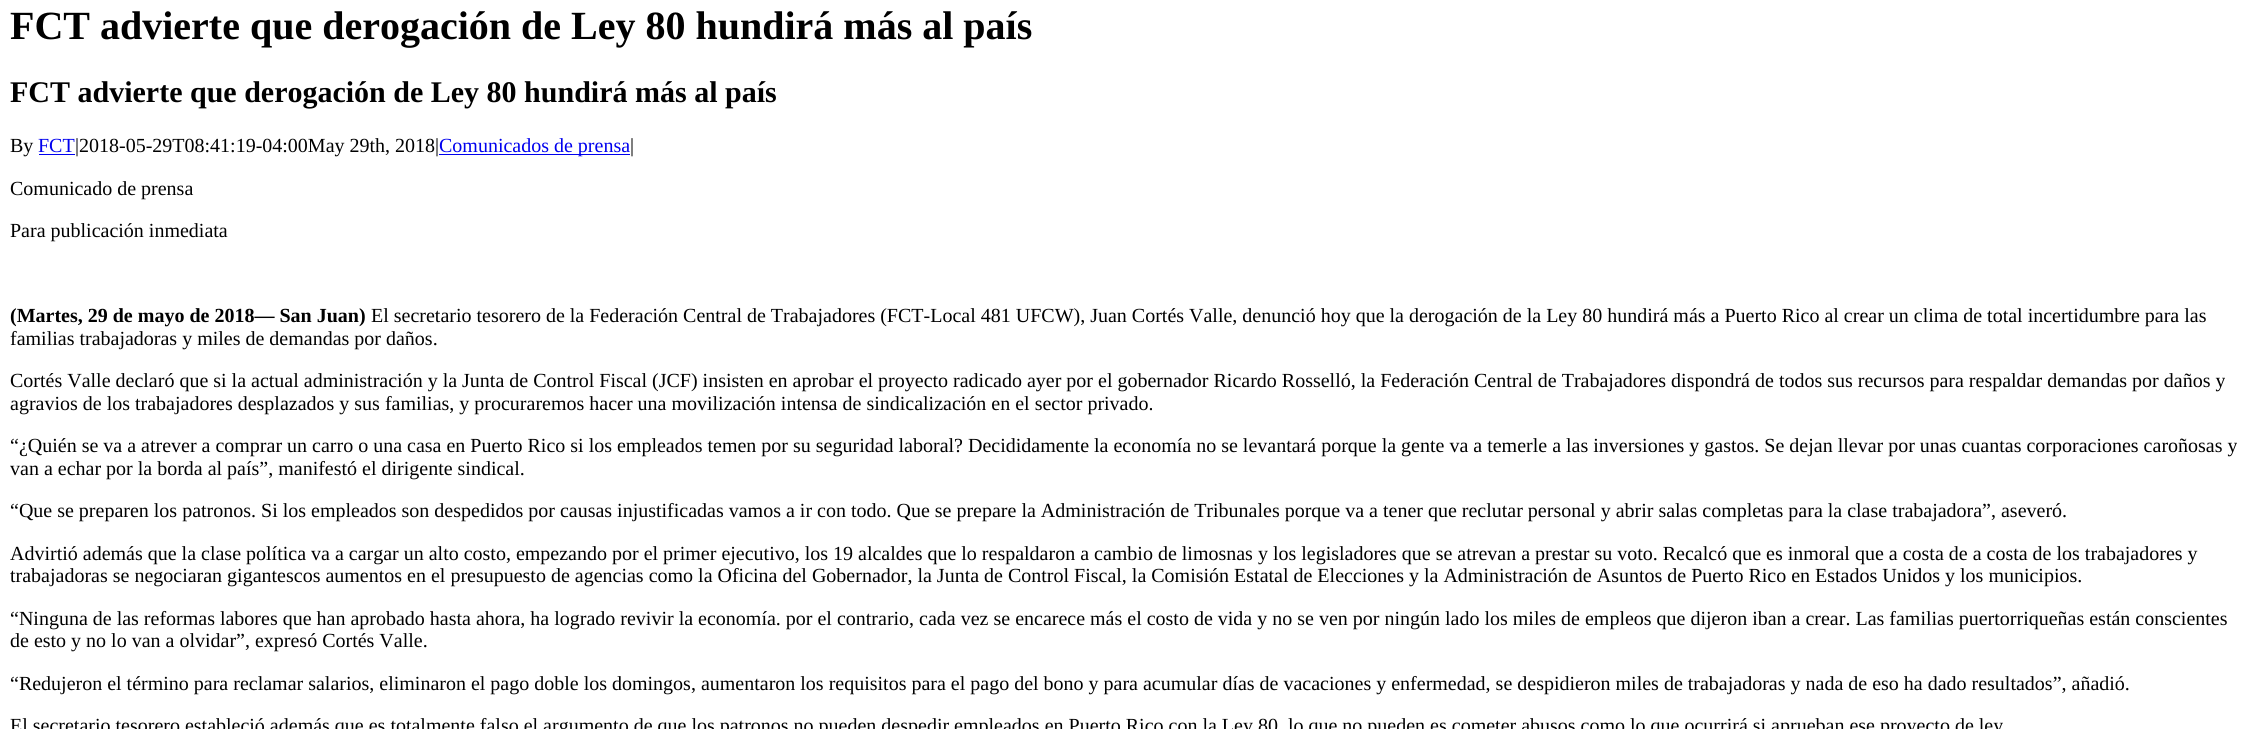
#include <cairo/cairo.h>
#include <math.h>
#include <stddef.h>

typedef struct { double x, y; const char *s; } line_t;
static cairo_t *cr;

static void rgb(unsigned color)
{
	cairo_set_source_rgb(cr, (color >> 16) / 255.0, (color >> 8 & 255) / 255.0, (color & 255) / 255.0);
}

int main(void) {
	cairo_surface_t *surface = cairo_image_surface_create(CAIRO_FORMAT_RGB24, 2259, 729);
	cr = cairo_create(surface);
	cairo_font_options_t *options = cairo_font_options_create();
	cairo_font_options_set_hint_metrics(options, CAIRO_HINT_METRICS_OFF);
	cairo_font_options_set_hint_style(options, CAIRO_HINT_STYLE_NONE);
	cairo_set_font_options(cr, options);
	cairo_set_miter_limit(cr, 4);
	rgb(0xffffff);
	cairo_paint(cr);
	rgb(0x0000ee);
	cairo_rectangle(cr, 39, 154, 36, 1);
	cairo_fill(cr);
	cairo_rectangle(cr, 439, 154, 191, 1);
	cairo_fill(cr);
	cairo_select_font_face(cr, "Liberation Serif", CAIRO_FONT_SLANT_NORMAL, CAIRO_FONT_WEIGHT_BOLD);
	cairo_set_font_size(cr, 40);
	rgb(0x000000);
	cairo_move_to(cr, 10, 39);
	cairo_show_text(cr, "FCT advierte que derogación de Ley 80 hundirá más al país");
	cairo_set_font_size(cr, 30);
	cairo_move_to(cr, 10, 102);
	cairo_show_text(cr, "FCT advierte que derogación de Ley 80 hundirá más al país");
	cairo_select_font_face(cr, "Liberation Serif", CAIRO_FONT_SLANT_NORMAL, CAIRO_FONT_WEIGHT_NORMAL);
	cairo_set_font_size(cr, 20);
	cairo_move_to(cr, 10, 152);
	cairo_show_text(cr, "By");
	rgb(0x0000ee);
	cairo_move_to(cr, 38, 152);
	cairo_show_text(cr, "FCT");
	rgb(0x000000);
	cairo_move_to(cr, 75, 152);
	cairo_show_text(cr, "|2018-05-29T08:41:19-04:00May 29th, 2018|");
	rgb(0x0000ee);
	cairo_move_to(cr, 439, 152);
	cairo_show_text(cr, "Comunicados de prensa");
	rgb(0x000000);
	{
		static const line_t items[] = {
			{630, 152, "|"},
			{10, 195, "Comunicado de prensa"},
			{10, 237, "Para publicación inmediata"},
		};
		for (size_t i = 0; i < sizeof items / sizeof *items; i++) {
			cairo_move_to(cr, items[i].x, items[i].y);
			cairo_show_text(cr, items[i].s);
		}
	}
	cairo_select_font_face(cr, "Liberation Serif", CAIRO_FONT_SLANT_NORMAL, CAIRO_FONT_WEIGHT_BOLD);
	cairo_move_to(cr, 10, 322);
	cairo_show_text(cr, "(Martes, 29 de mayo de 2018— San Juan)");
	cairo_select_font_face(cr, "Liberation Serif", CAIRO_FONT_SLANT_NORMAL, CAIRO_FONT_WEIGHT_NORMAL);
	{
		static const line_t items[] = {
			{371, 322, "El secretario tesorero de la Federación Central de Trabajadores (FCT-Local 481 UFCW), Juan Cortés Valle, denunció hoy que la derogación de la Ley 80 hundirá más a Puerto Rico al crear un clima de total incertidumbre para las"},
			{10, 345, "familias trabajadoras y miles de demandas por daños."},
			{10, 387, "Cortés Valle declaró que si la actual administración y la Junta de Control Fiscal (JCF) insisten en aprobar el proyecto radicado ayer por el gobernador Ricardo Rosselló, la Federación Central de Trabajadores dispondrá de todos sus recursos para respaldar demandas por daños y"},
			{10, 410, "agravios de los trabajadores desplazados y sus familias, y procuraremos hacer una movilización intensa de sindicalización en el sector privado."},
			{10, 452, "“¿Quién se va a atrever a comprar un carro o una casa en Puerto Rico si los empleados temen por su seguridad laboral? Decididamente la economía no se levantará porque la gente va a temerle a las inversiones y gastos. Se dejan llevar por unas cuantas corporaciones caroñosas y"},
			{10, 475, "van a echar por la borda al país”, manifestó el dirigente sindical."},
			{10, 517, "“Que se preparen los patronos. Si los empleados son despedidos por causas injustificadas vamos a ir con todo. Que se prepare la Administración de Tribunales porque va a tener que reclutar personal y abrir salas completas para la clase trabajadora”, aseveró."},
			{10, 560, "Advirtió además que la clase política va a cargar un alto costo, empezando por el primer ejecutivo, los 19 alcaldes que lo respaldaron a cambio de limosnas y los legisladores que se atrevan a prestar su voto. Recalcó que es inmoral que a costa de a costa de los trabajadores y"},
			{10, 582, "trabajadoras se negociaran gigantescos aumentos en el presupuesto de agencias como la Oficina del Gobernador, la Junta de Control Fiscal, la Comisión Estatal de Elecciones y la Administración de Asuntos de Puerto Rico en Estados Unidos y los municipios."},
			{10, 625, "“Ninguna de las reformas labores que han aprobado hasta ahora, ha logrado revivir la economía. por el contrario, cada vez se encarece más el costo de vida y no se ven por ningún lado los miles de empleos que dijeron iban a crear. Las familias puertorriqueñas están conscientes"},
			{10, 647, "de esto y no lo van a olvidar”, expresó Cortés Valle."},
			{10, 690, "“Redujeron el término para reclamar salarios, eliminaron el pago doble los domingos, aumentaron los requisitos para el pago del bono y para acumular días de vacaciones y enfermedad, se despidieron miles de trabajadoras y nada de eso ha dado resultados”, añadió."},
			{10, 732, "El secretario tesorero estableció además que es totalmente falso el argumento de que los patronos no pueden despedir empleados en Puerto Rico con la Ley 80, lo que no pueden es cometer abusos como lo que ocurrirá si aprueban ese proyecto de ley"},
		};
		for (size_t i = 0; i < sizeof items / sizeof *items; i++) {
			cairo_move_to(cr, items[i].x, items[i].y);
			cairo_show_text(cr, items[i].s);
		}
	}
	cairo_surface_write_to_png(surface, "page.png");
	cairo_font_options_destroy(options);
	cairo_destroy(cr);
	cairo_surface_destroy(surface);
	return 0;
}
